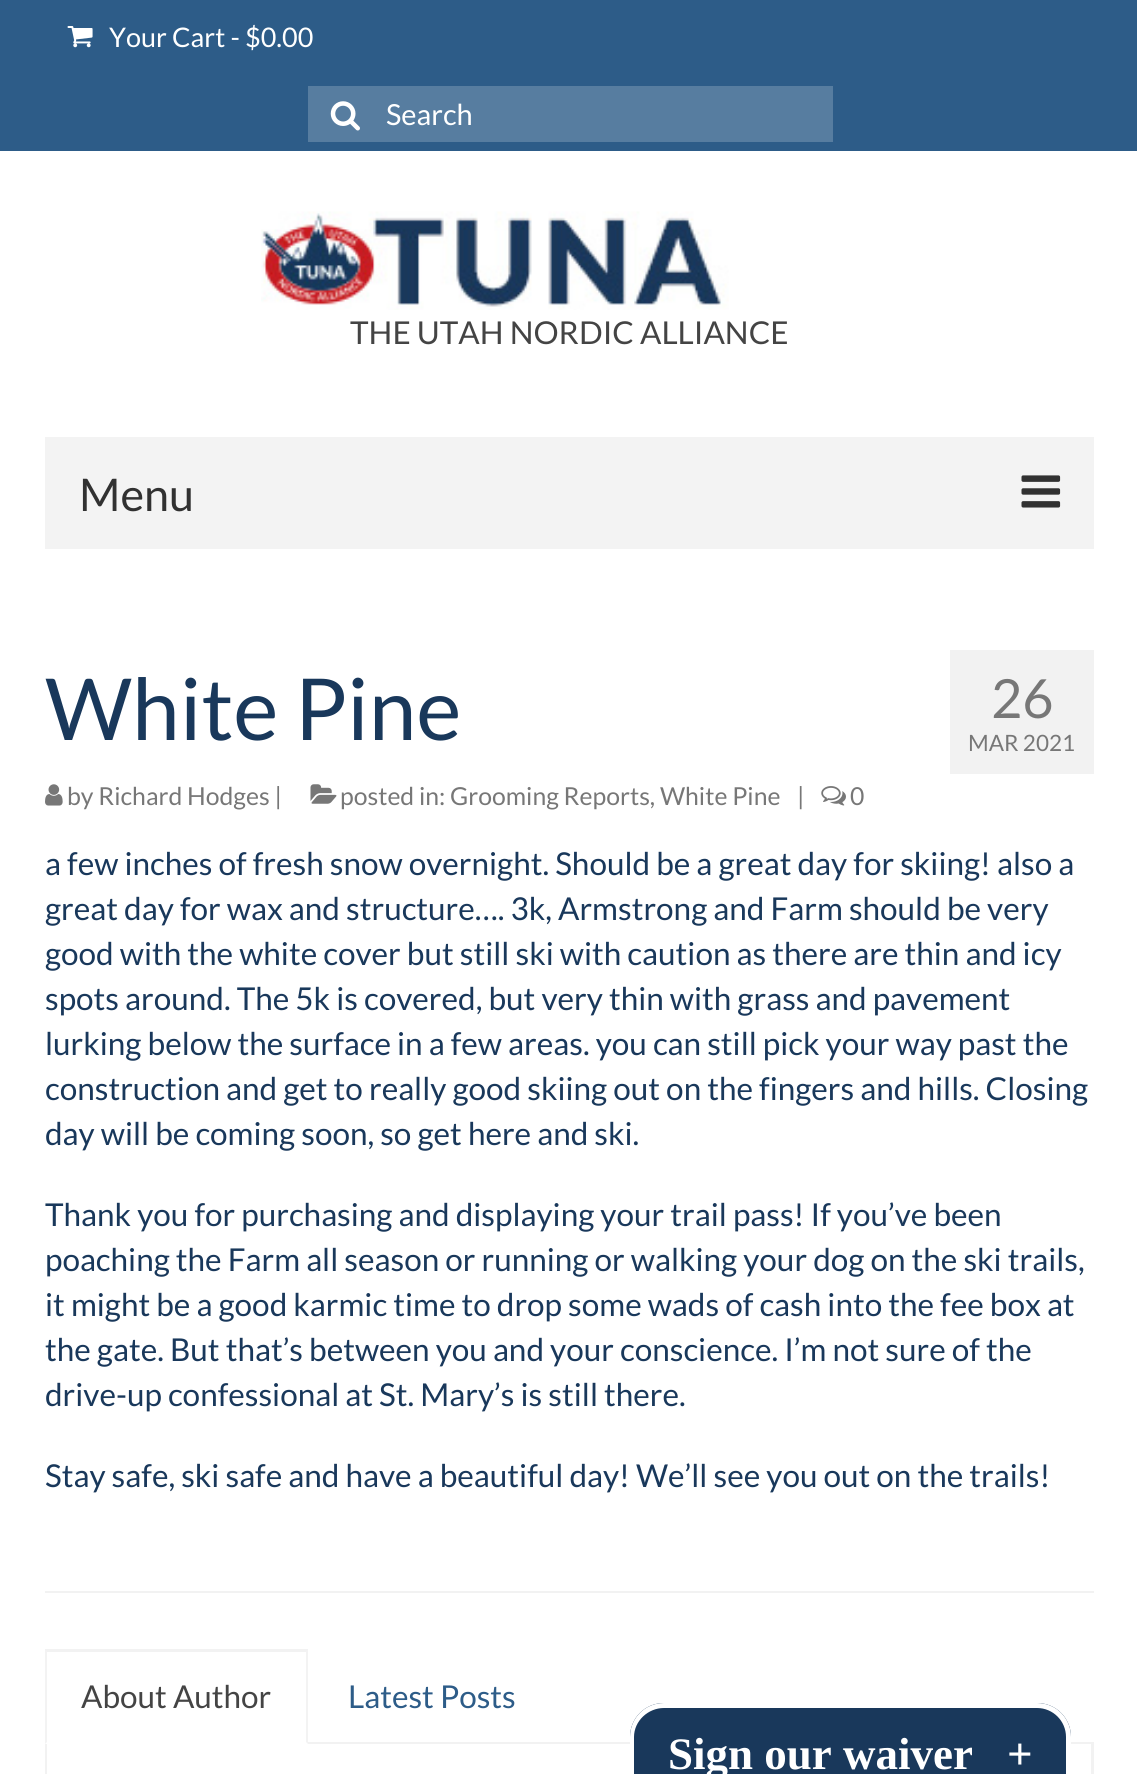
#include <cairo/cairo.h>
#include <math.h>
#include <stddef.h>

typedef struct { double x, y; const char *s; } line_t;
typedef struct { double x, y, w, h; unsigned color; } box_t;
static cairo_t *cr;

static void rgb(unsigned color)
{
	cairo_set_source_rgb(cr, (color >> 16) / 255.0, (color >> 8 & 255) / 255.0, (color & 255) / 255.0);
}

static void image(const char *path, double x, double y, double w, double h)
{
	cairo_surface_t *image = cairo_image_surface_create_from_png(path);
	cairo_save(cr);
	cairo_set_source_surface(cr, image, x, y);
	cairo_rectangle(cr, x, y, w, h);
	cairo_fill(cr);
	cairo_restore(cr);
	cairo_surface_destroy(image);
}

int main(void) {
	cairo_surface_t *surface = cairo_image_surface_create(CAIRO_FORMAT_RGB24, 1137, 1774);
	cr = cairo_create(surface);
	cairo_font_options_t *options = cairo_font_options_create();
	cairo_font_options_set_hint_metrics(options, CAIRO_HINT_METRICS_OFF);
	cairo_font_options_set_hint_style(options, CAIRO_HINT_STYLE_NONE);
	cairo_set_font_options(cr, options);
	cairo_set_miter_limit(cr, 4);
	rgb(0xffffff);
	cairo_paint(cr);
	rgb(0x2d5c88);
	cairo_rectangle(cr, 0, 0, 1137, 151);
	cairo_fill(cr);
	image("img/1.png", 67, 26, 26, 22);
	rgb(0x577da0);
	cairo_rectangle(cr, 308, 86, 525, 56);
	cairo_fill(cr);
	image("img/2.png", 330, 101, 30, 30);
	image("img/3.png", 261, 211, 468, 99);
	rgb(0xf3f3f3);
	cairo_rectangle(cr, 45, 437, 1049, 112);
	cairo_fill(cr);
	image("img/4.png", 1021, 475, 40, 33);
	image("img/5.png", 45, 784, 18, 22);
	image("img/6.png", 310, 784, 27, 20);
	image("img/7.png", 821, 786, 25, 20);
	{
		static const box_t items[] = {
			{950, 650, 144, 124, 0xf2f2f2},
			{45, 1591, 1049, 2, 0xf2f2f2},
			{308, 1742, 786, 2, 0xf2f2f2},
		};
		for (size_t i = 0; i < sizeof items / sizeof *items; i++) {
			rgb(items[i].color);
			cairo_rectangle(cr, items[i].x, items[i].y, items[i].w, items[i].h);
			cairo_fill(cr);
		}
	}
	cairo_new_path(cr);
	cairo_move_to(cr, 45, 1649);
	cairo_line_to(cr, 308, 1649);
	cairo_line_to(cr, 306, 1652);
	cairo_line_to(cr, 47, 1652);
	cairo_close_path(cr);
	cairo_fill(cr);
	cairo_set_source_rgba(cr, 0, 0, 0, 0.05);
	cairo_new_path(cr);
	cairo_move_to(cr, 308, 1649);
	cairo_line_to(cr, 308, 1744);
	cairo_line_to(cr, 306, 1742);
	cairo_line_to(cr, 306, 1652);
	cairo_close_path(cr);
	cairo_fill(cr);
	cairo_new_path(cr);
	cairo_move_to(cr, 45, 1744);
	cairo_line_to(cr, 45, 1649);
	cairo_line_to(cr, 47, 1652);
	cairo_line_to(cr, 47, 1742);
	cairo_close_path(cr);
	cairo_fill(cr);
	rgb(0xf2f2f2);
	cairo_new_path(cr);
	cairo_move_to(cr, 1094, 1744);
	cairo_line_to(cr, 1094, 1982);
	cairo_line_to(cr, 1091, 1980);
	cairo_line_to(cr, 1091, 1744);
	cairo_close_path(cr);
	cairo_fill(cr);
	cairo_new_path(cr);
	cairo_move_to(cr, 45, 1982);
	cairo_line_to(cr, 45, 1744);
	cairo_line_to(cr, 47, 1744);
	cairo_line_to(cr, 47, 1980);
	cairo_close_path(cr);
	cairo_fill(cr);
	rgb(0x19385b);
	cairo_new_path(cr);
	cairo_move_to(cr, 664, 1703);
	cairo_line_to(cr, 1037, 1703);
	cairo_curve_to(cr, 1056, 1703, 1071, 1718, 1071, 1737);
	cairo_line_to(cr, 1071, 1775);
	cairo_line_to(cr, 630, 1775);
	cairo_line_to(cr, 630, 1737);
	cairo_curve_to(cr, 630, 1718, 645, 1703, 664, 1703);
	cairo_close_path(cr);
	cairo_fill(cr);
	rgb(0xffffff);
	cairo_set_fill_rule(cr, CAIRO_FILL_RULE_EVEN_ODD);
	cairo_new_path(cr);
	cairo_move_to(cr, 664, 1703);
	cairo_line_to(cr, 1037, 1703);
	cairo_curve_to(cr, 1056, 1703, 1071, 1718, 1071, 1737);
	cairo_line_to(cr, 1071, 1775);
	cairo_line_to(cr, 630, 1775);
	cairo_line_to(cr, 630, 1737);
	cairo_curve_to(cr, 630, 1718, 645, 1703, 664, 1703);
	cairo_close_path(cr);
	cairo_move_to(cr, 664, 1708);
	cairo_line_to(cr, 1037, 1708);
	cairo_curve_to(cr, 1053, 1708, 1066, 1721, 1066, 1737);
	cairo_line_to(cr, 1066, 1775);
	cairo_line_to(cr, 634, 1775);
	cairo_line_to(cr, 634, 1737);
	cairo_curve_to(cr, 634, 1721, 648, 1708, 664, 1708);
	cairo_close_path(cr);
	cairo_fill(cr);
	cairo_select_font_face(cr, "Lato", CAIRO_FONT_SLANT_NORMAL, CAIRO_FONT_WEIGHT_NORMAL);
	cairo_set_font_size(cr, 27);
	cairo_move_to(cr, 109, 47);
	cairo_show_text(cr, "Your Cart - $0.00");
	cairo_set_font_size(cr, 29);
	cairo_move_to(cr, 386, 125);
	cairo_show_text(cr, "Search");
	cairo_set_font_size(cr, 31.5);
	rgb(0x444444);
	cairo_move_to(cr, 350, 344);
	cairo_show_text(cr, "THE UTAH NORDIC ALLIANCE");
	cairo_set_font_size(cr, 45);
	rgb(0x313131);
	cairo_move_to(cr, 79, 511);
	cairo_show_text(cr, "Menu");
	cairo_set_font_size(cr, 85.5);
	rgb(0x19385b);
	cairo_move_to(cr, 45, 740);
	cairo_show_text(cr, "White Pine");
	cairo_set_font_size(cr, 24.75);
	rgb(0x777777);
	{
		static const line_t items[] = {
			{67, 805, "by Richard Hodges |"},
			{340, 805, "posted in: Grooming Reports, White Pine"},
			{797, 805, "|"},
			{850, 805, "0"},
		};
		for (size_t i = 0; i < sizeof items / sizeof *items; i++) {
			cairo_move_to(cr, items[i].x, items[i].y);
			cairo_show_text(cr, items[i].s);
		}
	}
	cairo_set_font_size(cr, 54);
	cairo_move_to(cr, 991, 718);
	cairo_show_text(cr, "26");
	cairo_set_font_size(cr, 22.5);
	cairo_move_to(cr, 968, 751);
	cairo_show_text(cr, "MAR 2021");
	cairo_set_font_size(cr, 31.5);
	rgb(0x19385b);
	{
		static const line_t items[] = {
			{45, 875, "a few inches of fresh snow overnight. Should be a great day for skiing! also a"},
			{45, 920, "great day for wax and structure…. 3k, Armstrong and Farm should be very"},
			{45, 965, "good with the white cover but still ski with caution as there are thin and icy"},
			{45, 1010, "spots around. The 5k is covered, but very thin with grass and pavement"},
			{45, 1055, "lurking below the surface in a few areas. you can still pick your way past the"},
			{45, 1100, "construction and get to really good skiing out on the fingers and hills. Closing"},
			{45, 1145, "day will be coming soon, so get here and ski."},
			{45, 1226, "Thank you for purchasing and displaying your trail pass! If you’ve been"},
			{45, 1271, "poaching the Farm all season or running or walking your dog on the ski trails,"},
			{45, 1316, "it might be a good karmic time to drop some wads of cash into the fee box at"},
			{45, 1361, "the gate. But that’s between you and your conscience. I’m not sure of the"},
			{45, 1406, "drive-up confessional at St. Mary’s is still there."},
			{45, 1487, "Stay safe, ski safe and have a beautiful day! We’ll see you out on the trails!"},
		};
		for (size_t i = 0; i < sizeof items / sizeof *items; i++) {
			cairo_move_to(cr, items[i].x, items[i].y);
			cairo_show_text(cr, items[i].s);
		}
	}
	rgb(0x444444);
	cairo_move_to(cr, 81, 1708);
	cairo_show_text(cr, "About Author");
	rgb(0x2d5c88);
	cairo_move_to(cr, 348, 1708);
	cairo_show_text(cr, "Latest Posts");
	cairo_select_font_face(cr, "Liberation Serif", CAIRO_FONT_SLANT_NORMAL, CAIRO_FONT_WEIGHT_BOLD);
	cairo_set_font_size(cr, 45);
	rgb(0xffffff);
	cairo_move_to(cr, 668, 1769);
	cairo_show_text(cr, "Sign our waiver");
	cairo_move_to(cr, 1007, 1769);
	cairo_show_text(cr, "+");
	cairo_surface_write_to_png(surface, "page.png");
	cairo_font_options_destroy(options);
	cairo_destroy(cr);
	cairo_surface_destroy(surface);
	return 0;
}
